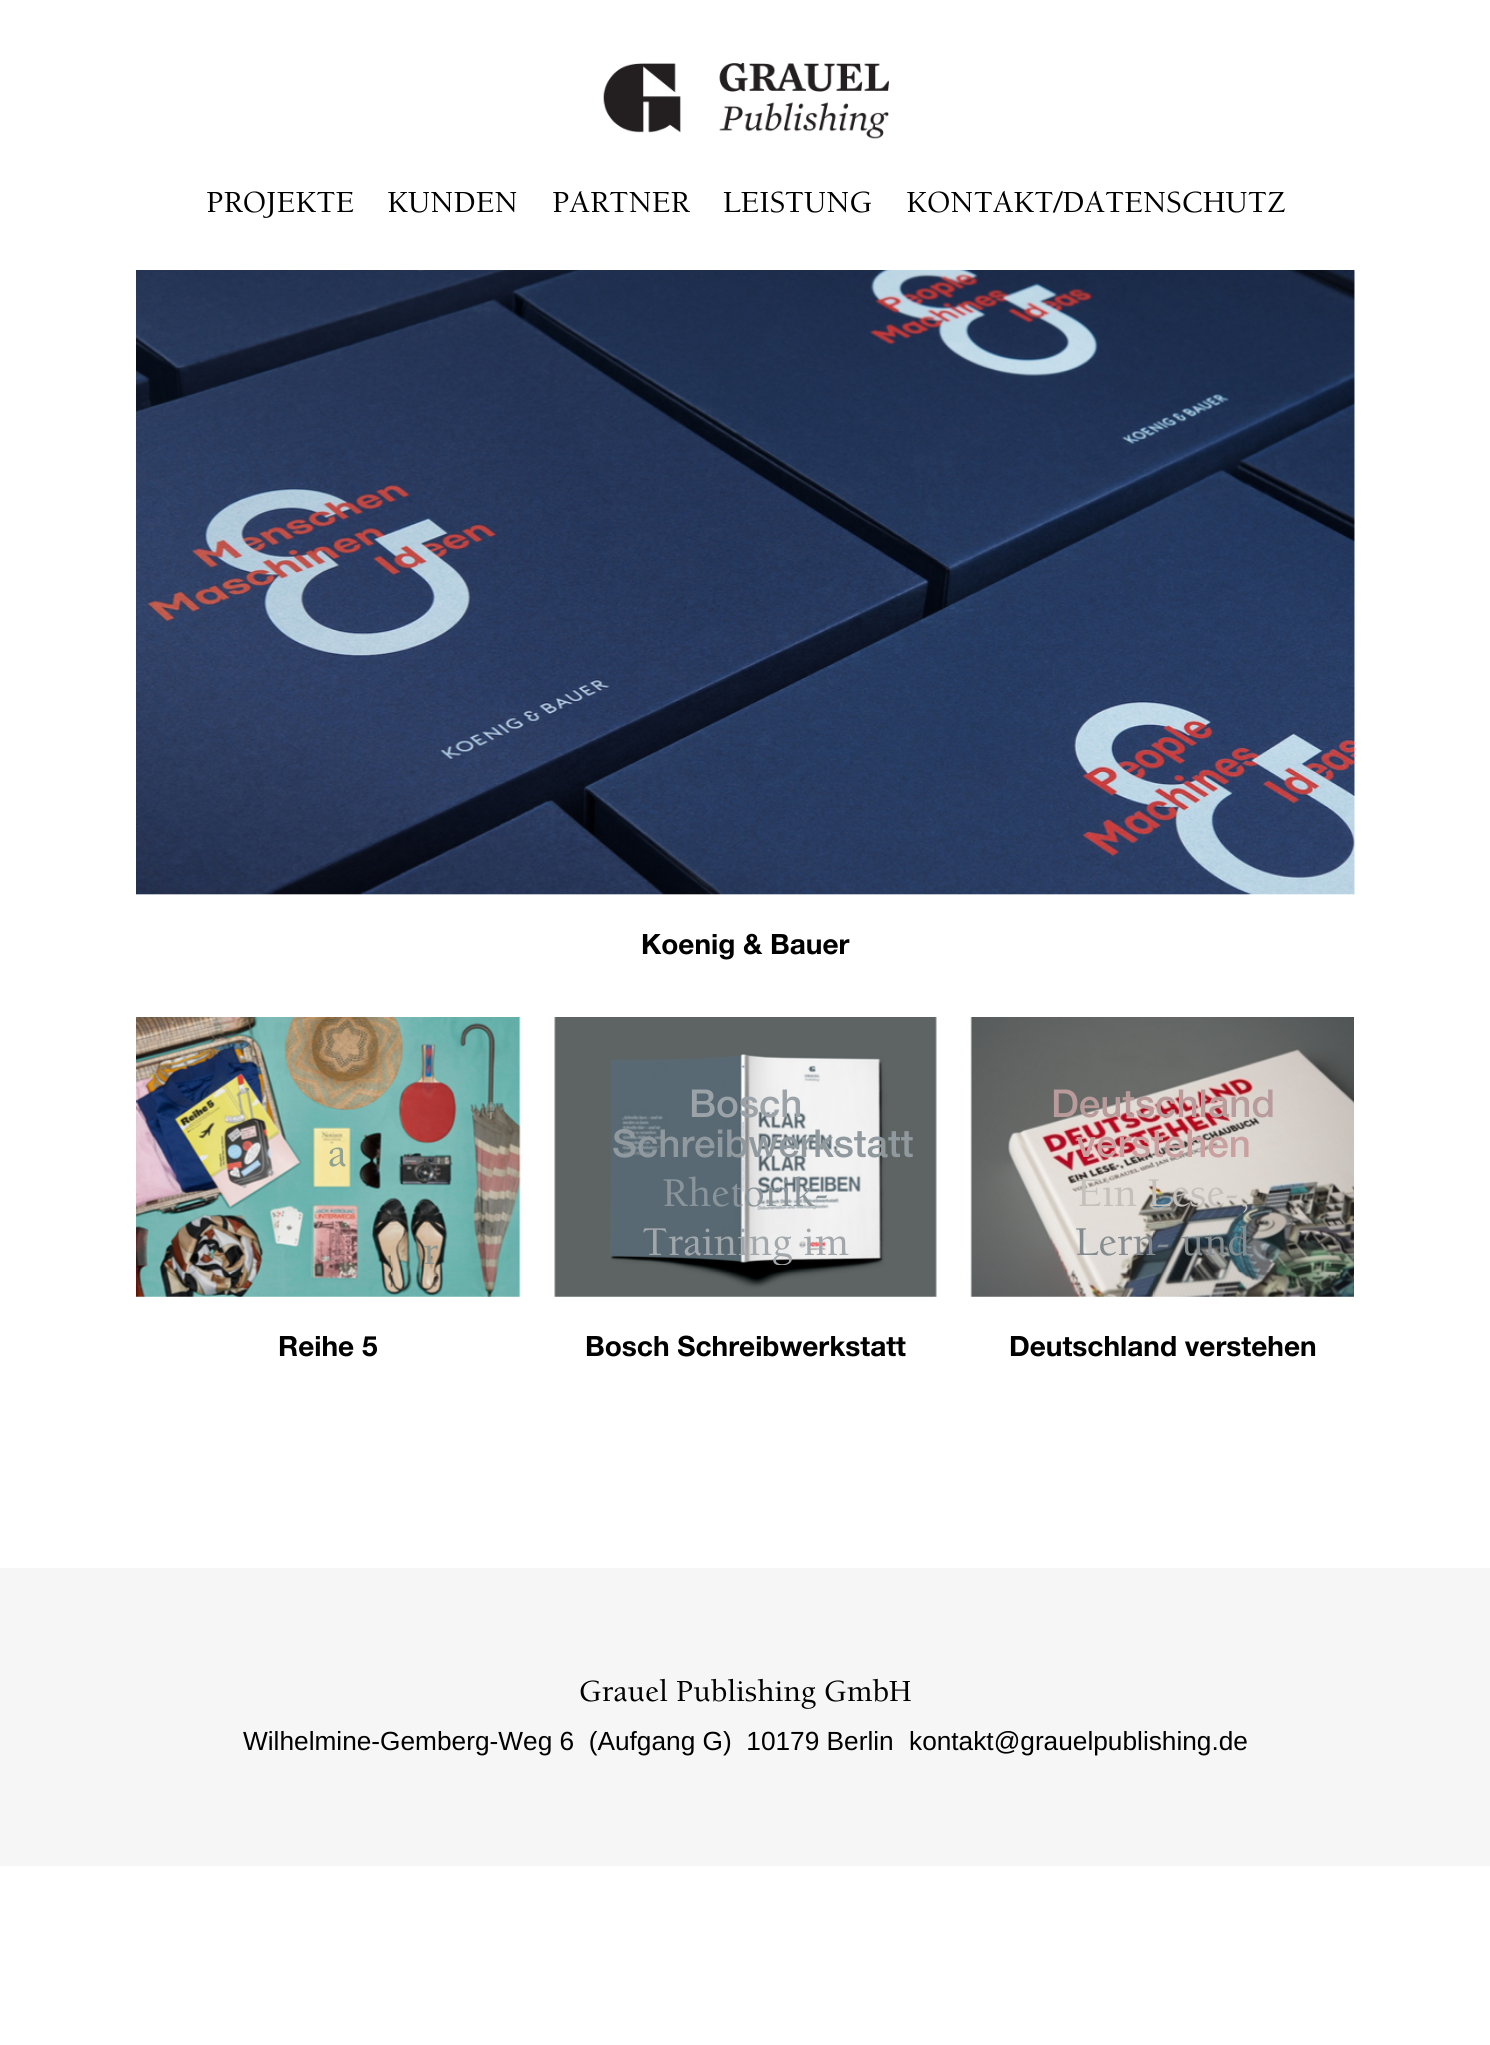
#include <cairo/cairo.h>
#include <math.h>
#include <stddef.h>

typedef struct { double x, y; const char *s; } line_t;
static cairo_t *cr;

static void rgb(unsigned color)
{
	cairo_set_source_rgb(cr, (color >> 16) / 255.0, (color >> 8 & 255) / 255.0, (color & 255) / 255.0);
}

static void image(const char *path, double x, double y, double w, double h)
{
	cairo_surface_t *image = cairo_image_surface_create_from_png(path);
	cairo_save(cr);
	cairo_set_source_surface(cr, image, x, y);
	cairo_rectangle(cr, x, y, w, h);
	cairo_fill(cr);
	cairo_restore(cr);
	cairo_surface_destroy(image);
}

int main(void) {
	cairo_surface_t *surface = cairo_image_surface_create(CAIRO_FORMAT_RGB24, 1490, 2045);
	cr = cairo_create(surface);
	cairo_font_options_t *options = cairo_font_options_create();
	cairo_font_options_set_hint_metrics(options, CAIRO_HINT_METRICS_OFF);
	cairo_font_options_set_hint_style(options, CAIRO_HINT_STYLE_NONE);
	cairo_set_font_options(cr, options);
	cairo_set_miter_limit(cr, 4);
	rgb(0xffffff);
	cairo_paint(cr);
	image("img/1.png", 603, 63, 286, 76);
	image("img/2.png", 136, 270, 1219, 625);
	image("img/3.png", 136, 1017, 385, 280);
	image("img/4.png", 554, 1017, 383, 280);
	image("img/5.png", 970, 1017, 384, 280);
	rgb(0xf6f6f6);
	cairo_rectangle(cr, 0, 1568, 1490, 298);
	cairo_fill(cr);
	cairo_select_font_face(cr, "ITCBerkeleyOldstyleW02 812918 Medium", CAIRO_FONT_SLANT_NORMAL, CAIRO_FONT_WEIGHT_NORMAL);
	cairo_set_font_size(cr, 31.5);
	rgb(0x000000);
	{
		static const line_t items[] = {
			{206, 212, "PROJEKTE"},
			{387, 212, "KUNDEN"},
			{552, 212, "PARTNER"},
			{723, 212, "LEISTUNG"},
			{906, 212, "KONTAKT/DATENSCHUTZ"},
		};
		for (size_t i = 0; i < sizeof items / sizeof *items; i++) {
			cairo_move_to(cr, items[i].x, items[i].y);
			cairo_show_text(cr, items[i].s);
		}
	}
	cairo_select_font_face(cr, "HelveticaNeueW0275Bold", CAIRO_FONT_SLANT_NORMAL, CAIRO_FONT_WEIGHT_BOLD);
	cairo_set_font_size(cr, 28);
	cairo_move_to(cr, 641, 954);
	cairo_show_text(cr, "Koenig & Bauer");
	cairo_select_font_face(cr, "ITCBerkeleyOldstyleW02 812918 Medium", CAIRO_FONT_SLANT_NORMAL, CAIRO_FONT_WEIGHT_NORMAL);
	cairo_set_font_size(cr, 42);
	rgb(0x91a290);
	cairo_move_to(cr, 328, 1166);
	cairo_show_text(cr, "a");
	rgb(0x8b968f);
	cairo_move_to(cr, 423, 1264);
	cairo_show_text(cr, "r");
	cairo_select_font_face(cr, "HelveticaNeueW0275Bold", CAIRO_FONT_SLANT_NORMAL, CAIRO_FONT_WEIGHT_BOLD);
	cairo_set_font_size(cr, 28);
	rgb(0x000000);
	cairo_move_to(cr, 278, 1356);
	cairo_show_text(cr, "Reihe 5");
	cairo_select_font_face(cr, "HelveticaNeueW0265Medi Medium", CAIRO_FONT_SLANT_NORMAL, CAIRO_FONT_WEIGHT_NORMAL);
	cairo_set_font_size(cr, 38.5);
	rgb(0x9ba3a9);
	cairo_move_to(cr, 689, 1117);
	cairo_show_text(cr, "Bosch");
	rgb(0x90999e);
	cairo_move_to(cr, 612, 1157);
	cairo_show_text(cr, "Schreibwerkstatt");
	cairo_select_font_face(cr, "ITCBerkeleyOldstyleW02 812918 Medium", CAIRO_FONT_SLANT_NORMAL, CAIRO_FONT_WEIGHT_NORMAL);
	cairo_set_font_size(cr, 42);
	rgb(0x8a959b);
	cairo_move_to(cr, 662, 1206);
	cairo_show_text(cr, "Rhetorik-");
	cairo_save(cr);
	cairo_rectangle(cr, 578, 1048, 336, 217);
	cairo_clip(cr);
	rgb(0xa1a7ab);
	cairo_move_to(cr, 642, 1255);
	cairo_show_text(cr, "Training im");
	cairo_restore(cr);
	cairo_select_font_face(cr, "HelveticaNeueW0275Bold", CAIRO_FONT_SLANT_NORMAL, CAIRO_FONT_WEIGHT_BOLD);
	cairo_set_font_size(cr, 28);
	rgb(0x000000);
	cairo_move_to(cr, 585, 1356);
	cairo_show_text(cr, "Bosch Schreibwerkstatt");
	cairo_select_font_face(cr, "HelveticaNeueW0265Medi Medium", CAIRO_FONT_SLANT_NORMAL, CAIRO_FONT_WEIGHT_NORMAL);
	cairo_set_font_size(cr, 38.5);
	rgb(0xb89b9a);
	cairo_move_to(cr, 1051, 1117);
	cairo_show_text(cr, "Deutschland");
	rgb(0xca9fa0);
	cairo_move_to(cr, 1076, 1157);
	cairo_show_text(cr, "verstehen");
	cairo_select_font_face(cr, "ITCBerkeleyOldstyleW02 812918 Medium", CAIRO_FONT_SLANT_NORMAL, CAIRO_FONT_WEIGHT_NORMAL);
	cairo_set_font_size(cr, 42);
	rgb(0xc4c0bb);
	cairo_move_to(cr, 1077, 1206);
	cairo_show_text(cr, "Ein Lese-,");
	rgb(0x848c8f);
	cairo_move_to(cr, 1075, 1255);
	cairo_show_text(cr, "Lern- und");
	cairo_select_font_face(cr, "HelveticaNeueW0275Bold", CAIRO_FONT_SLANT_NORMAL, CAIRO_FONT_WEIGHT_BOLD);
	cairo_set_font_size(cr, 28);
	rgb(0x000000);
	cairo_move_to(cr, 1009, 1356);
	cairo_show_text(cr, "Deutschland verstehen");
	cairo_select_font_face(cr, "ITCBerkeleyOldstyleW02 812918 Medium", CAIRO_FONT_SLANT_NORMAL, CAIRO_FONT_WEIGHT_NORMAL);
	cairo_set_font_size(cr, 31.5);
	cairo_move_to(cr, 579, 1701);
	cairo_show_text(cr, "Grauel Publishing GmbH");
	cairo_select_font_face(cr, "Liberation Sans", CAIRO_FONT_SLANT_NORMAL, CAIRO_FONT_WEIGHT_NORMAL);
	cairo_set_font_size(cr, 26.25);
	cairo_move_to(cr, 243, 1750);
	cairo_show_text(cr, "Wilhelmine-Gemberg-Weg 6  (Aufgang G)  10179 Berlin");
	cairo_move_to(cr, 909, 1750);
	cairo_show_text(cr, "kontakt@grauelpublishing.de");
	cairo_surface_write_to_png(surface, "page.png");
	cairo_font_options_destroy(options);
	cairo_destroy(cr);
	cairo_surface_destroy(surface);
	return 0;
}
